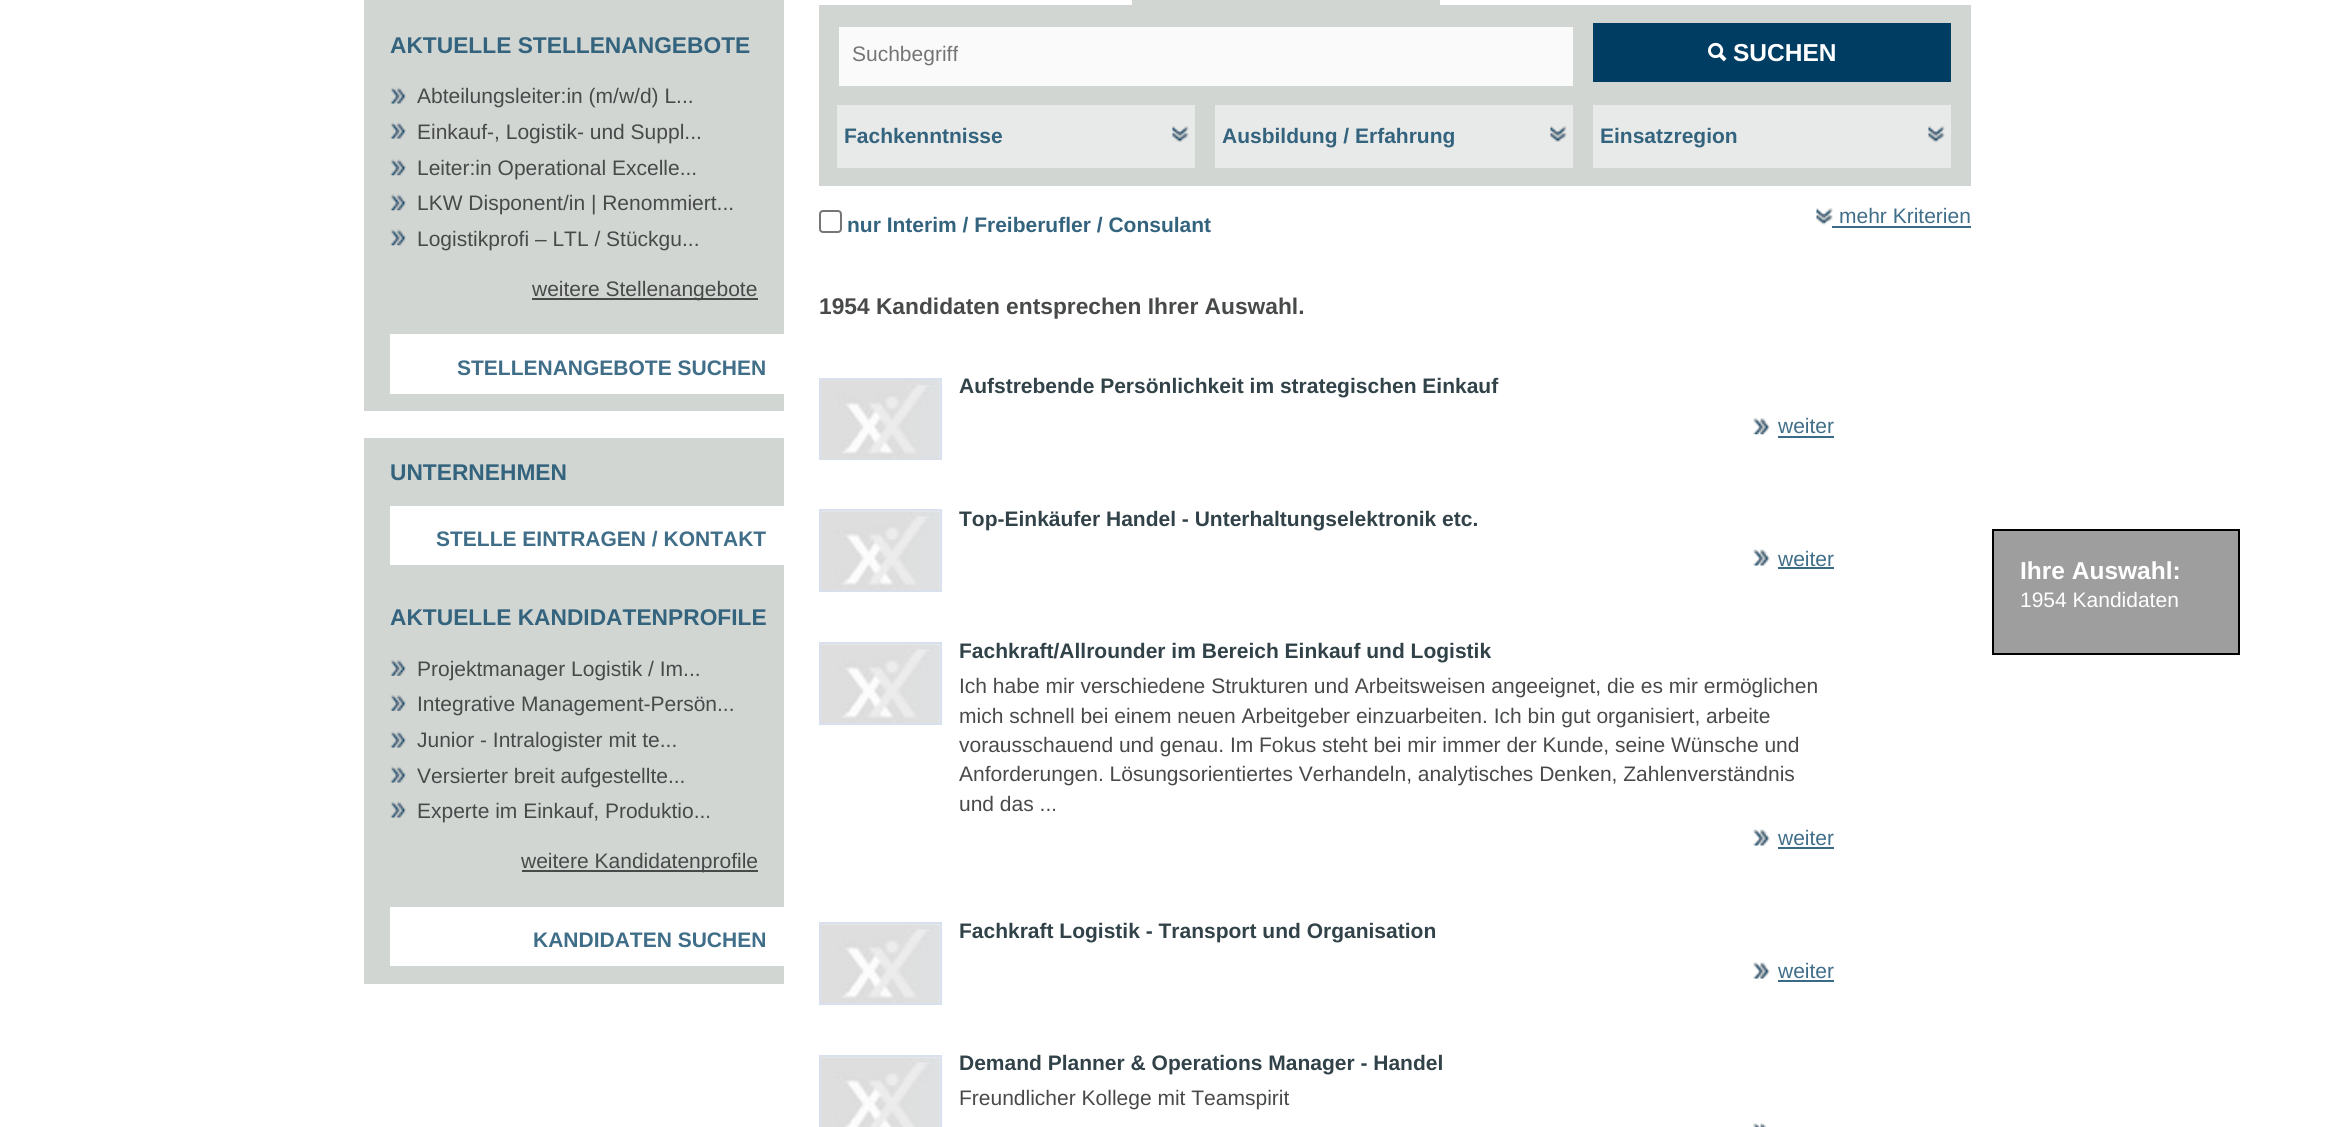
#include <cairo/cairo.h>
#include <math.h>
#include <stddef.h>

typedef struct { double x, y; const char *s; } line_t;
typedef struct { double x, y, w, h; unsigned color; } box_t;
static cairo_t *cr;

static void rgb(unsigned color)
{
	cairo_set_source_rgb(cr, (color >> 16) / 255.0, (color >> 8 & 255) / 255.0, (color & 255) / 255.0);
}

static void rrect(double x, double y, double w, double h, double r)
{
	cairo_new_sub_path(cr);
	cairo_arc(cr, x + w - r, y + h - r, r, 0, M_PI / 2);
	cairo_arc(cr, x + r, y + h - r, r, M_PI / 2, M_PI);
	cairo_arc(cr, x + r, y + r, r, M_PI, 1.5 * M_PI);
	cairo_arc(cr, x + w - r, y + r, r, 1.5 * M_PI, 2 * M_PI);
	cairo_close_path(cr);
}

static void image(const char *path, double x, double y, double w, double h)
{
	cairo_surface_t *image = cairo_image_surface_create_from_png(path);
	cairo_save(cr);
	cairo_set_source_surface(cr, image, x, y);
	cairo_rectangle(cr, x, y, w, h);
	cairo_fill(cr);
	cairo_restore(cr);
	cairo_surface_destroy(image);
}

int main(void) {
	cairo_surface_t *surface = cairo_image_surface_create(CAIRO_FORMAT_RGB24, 2334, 1127);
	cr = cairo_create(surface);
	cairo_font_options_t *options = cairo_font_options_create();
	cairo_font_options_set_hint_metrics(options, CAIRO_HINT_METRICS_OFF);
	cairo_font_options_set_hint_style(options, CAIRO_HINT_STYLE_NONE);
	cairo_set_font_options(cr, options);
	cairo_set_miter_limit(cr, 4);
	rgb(0xffffff);
	cairo_paint(cr);
	rgb(0xd1d6d3);
	cairo_rectangle(cr, 364, 0, 420, 411);
	cairo_fill(cr);
	image("img/1.png", 390, 87, 16, 17);
	image("img/1.png", 390, 122, 16, 17);
	image("img/2.png", 390, 159, 16, 17);
	image("img/2.png", 390, 194, 16, 17);
	image("img/2.png", 390, 229, 16, 17);
	{
		static const box_t items[] = {
			{532, 298, 226, 2, 0x484a49},
			{390, 334, 394, 60, 0xffffff},
			{364, 438, 420, 546, 0xd1d6d3},
			{390, 506, 394, 59, 0xffffff},
		};
		for (size_t i = 0; i < sizeof items / sizeof *items; i++) {
			rgb(items[i].color);
			cairo_rectangle(cr, items[i].x, items[i].y, items[i].w, items[i].h);
			cairo_fill(cr);
		}
	}
	image("img/3.png", 390, 660, 16, 16);
	image("img/3.png", 390, 695, 16, 16);
	image("img/1.png", 390, 731, 16, 17);
	image("img/1.png", 390, 766, 16, 17);
	image("img/1.png", 390, 801, 16, 17);
	{
		static const box_t items[] = {
			{522, 870, 236, 2, 0x484a49},
			{390, 907, 394, 59, 0xffffff},
			{1132, 0, 308, 5, 0xd1d6d2},
			{819, 5, 1152, 181, 0xd1d6d2},
			{839, 27, 734, 59, 0xfafafa},
			{1593, 23, 358, 59, 0x003d62},
		};
		for (size_t i = 0; i < sizeof items / sizeof *items; i++) {
			rgb(items[i].color);
			cairo_rectangle(cr, items[i].x, items[i].y, items[i].w, items[i].h);
			cairo_fill(cr);
		}
	}
	image("img/4.png", 1708, 42, 19, 20);
	rgb(0xe8eae9);
	cairo_rectangle(cr, 837, 105, 358, 63);
	cairo_fill(cr);
	image("img/5.png", 1172, 126, 17, 16);
	cairo_rectangle(cr, 1215, 105, 358, 63);
	cairo_fill(cr);
	image("img/5.png", 1550, 126, 17, 16);
	cairo_rectangle(cr, 1593, 105, 358, 63);
	cairo_fill(cr);
	image("img/6.png", 1928, 126, 17, 16);
	rgb(0x9e9e9e);
	cairo_rectangle(cr, 1993, 530, 246, 124);
	cairo_fill_preserve(cr);
	rgb(0x000000);
	cairo_stroke(cr);
	rrect(820, 211, 21, 21, 3);
	rgb(0x767676);
	cairo_stroke(cr);
	image("img/7.png", 1816, 208, 17, 17);
	rgb(0x3b6a86);
	cairo_rectangle(cr, 1832, 226, 139, 2);
	cairo_fill(cr);
	cairo_rectangle(cr, 820, 379, 121, 80);
	rgb(0xd7e0ec);
	cairo_stroke(cr);
	image("img/8.png", 821, 380, 119, 79);
	image("img/9.png", 1753, 418, 17, 17);
	rgb(0x3b6a86);
	cairo_rectangle(cr, 1778, 436, 56, 2);
	cairo_fill(cr);
	cairo_rectangle(cr, 820, 510, 121, 81);
	rgb(0xd7e0ec);
	cairo_stroke(cr);
	image("img/10.png", 821, 511, 119, 79);
	image("img/11.png", 1753, 549, 17, 17);
	rgb(0x3b6a86);
	cairo_rectangle(cr, 1778, 567, 56, 2);
	cairo_fill(cr);
	cairo_rectangle(cr, 820, 643, 121, 81);
	rgb(0xd7e0ec);
	cairo_stroke(cr);
	image("img/10.png", 821, 644, 119, 79);
	image("img/11.png", 1753, 829, 17, 17);
	rgb(0x3b6a86);
	cairo_rectangle(cr, 1778, 847, 56, 2);
	cairo_fill(cr);
	cairo_rectangle(cr, 820, 923, 121, 81);
	rgb(0xd7e0ec);
	cairo_stroke(cr);
	image("img/10.png", 821, 924, 119, 79);
	image("img/11.png", 1753, 962, 17, 17);
	rgb(0x3b6a86);
	cairo_rectangle(cr, 1778, 980, 56, 2);
	cairo_fill(cr);
	cairo_rectangle(cr, 820, 1056, 121, 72);
	rgb(0xd7e0ec);
	cairo_stroke(cr);
	image("img/12.png", 821, 1057, 119, 70);
	image("img/13.png", 1753, 1123, 14, 4);
	cairo_select_font_face(cr, "Liberation Sans", CAIRO_FONT_SLANT_NORMAL, CAIRO_FONT_WEIGHT_BOLD);
	cairo_set_font_size(cr, 22.75);
	rgb(0x34637e);
	cairo_move_to(cr, 390, 53);
	cairo_show_text(cr, "AKTUELLE STELLENANGEBOTE");
	cairo_select_font_face(cr, "Liberation Sans", CAIRO_FONT_SLANT_NORMAL, CAIRO_FONT_WEIGHT_NORMAL);
	cairo_set_font_size(cr, 21);
	rgb(0x484a49);
	{
		static const line_t items[] = {
			{417, 103, "Abteilungsleiter:in (m/w/d) L..."},
			{417, 139, "Einkauf-, Logistik- und Suppl..."},
			{417, 175, "Leiter:in Operational Excelle..."},
			{417, 210, "LKW Disponent/in | Renommiert..."},
			{417, 246, "Logistikprofi – LTL / Stückgu..."},
			{532, 296, "weitere Stellenangebote"},
		};
		for (size_t i = 0; i < sizeof items / sizeof *items; i++) {
			cairo_move_to(cr, items[i].x, items[i].y);
			cairo_show_text(cr, items[i].s);
		}
	}
	cairo_select_font_face(cr, "Liberation Sans", CAIRO_FONT_SLANT_NORMAL, CAIRO_FONT_WEIGHT_BOLD);
	rgb(0x406e89);
	cairo_move_to(cr, 457, 375);
	cairo_show_text(cr, "STELLENANGEBOTE SUCHEN");
	cairo_set_font_size(cr, 22.75);
	rgb(0x34637e);
	cairo_move_to(cr, 390, 480);
	cairo_show_text(cr, "UNTERNEHMEN");
	cairo_set_font_size(cr, 21);
	rgb(0x406e89);
	cairo_move_to(cr, 436, 546);
	cairo_show_text(cr, "STELLE EINTRAGEN / KONTAKT");
	cairo_set_font_size(cr, 22.75);
	rgb(0x34637e);
	cairo_move_to(cr, 390, 625);
	cairo_show_text(cr, "AKTUELLE KANDIDATENPROFILE");
	cairo_select_font_face(cr, "Liberation Sans", CAIRO_FONT_SLANT_NORMAL, CAIRO_FONT_WEIGHT_NORMAL);
	cairo_set_font_size(cr, 21);
	rgb(0x484a49);
	{
		static const line_t items[] = {
			{417, 676, "Projektmanager Logistik / Im..."},
			{417, 711, "Integrative Management-Persön..."},
			{417, 747, "Junior - Intralogister mit te..."},
			{417, 783, "Versierter breit aufgestellte..."},
			{417, 818, "Experte im Einkauf, Produktio..."},
			{521, 868, "weitere Kandidatenprofile"},
		};
		for (size_t i = 0; i < sizeof items / sizeof *items; i++) {
			cairo_move_to(cr, items[i].x, items[i].y);
			cairo_show_text(cr, items[i].s);
		}
	}
	cairo_select_font_face(cr, "Liberation Sans", CAIRO_FONT_SLANT_NORMAL, CAIRO_FONT_WEIGHT_BOLD);
	rgb(0x406e89);
	cairo_move_to(cr, 533, 947);
	cairo_show_text(cr, "KANDIDATEN SUCHEN");
	cairo_select_font_face(cr, "Liberation Sans", CAIRO_FONT_SLANT_NORMAL, CAIRO_FONT_WEIGHT_NORMAL);
	rgb(0x757575);
	cairo_move_to(cr, 852, 61);
	cairo_show_text(cr, "Suchbegriff");
	cairo_select_font_face(cr, "Liberation Sans", CAIRO_FONT_SLANT_NORMAL, CAIRO_FONT_WEIGHT_BOLD);
	cairo_set_font_size(cr, 24.5);
	rgb(0xffffff);
	cairo_move_to(cr, 1733, 61);
	cairo_show_text(cr, "SUCHEN");
	cairo_set_font_size(cr, 21);
	rgb(0x34637e);
	{
		static const line_t items[] = {
			{844, 143, "Fachkenntnisse"},
			{1222, 143, "Ausbildung / Erfahrung"},
			{1600, 143, "Einsatzregion"},
		};
		for (size_t i = 0; i < sizeof items / sizeof *items; i++) {
			cairo_move_to(cr, items[i].x, items[i].y);
			cairo_show_text(cr, items[i].s);
		}
	}
	cairo_set_font_size(cr, 24.5);
	rgb(0xffffff);
	cairo_move_to(cr, 2020, 579);
	cairo_show_text(cr, "Ihre Auswahl:");
	cairo_select_font_face(cr, "Liberation Sans", CAIRO_FONT_SLANT_NORMAL, CAIRO_FONT_WEIGHT_NORMAL);
	cairo_set_font_size(cr, 21);
	cairo_move_to(cr, 2020, 607);
	cairo_show_text(cr, "1954 Kandidaten");
	cairo_select_font_face(cr, "Liberation Sans", CAIRO_FONT_SLANT_NORMAL, CAIRO_FONT_WEIGHT_BOLD);
	rgb(0x34637e);
	cairo_move_to(cr, 847, 232);
	cairo_show_text(cr, "nur Interim / Freiberufler / Consulant");
	cairo_select_font_face(cr, "Liberation Sans", CAIRO_FONT_SLANT_NORMAL, CAIRO_FONT_WEIGHT_NORMAL);
	rgb(0x406e89);
	cairo_move_to(cr, 1839, 223);
	cairo_show_text(cr, "mehr Kriterien");
	cairo_select_font_face(cr, "Liberation Sans", CAIRO_FONT_SLANT_NORMAL, CAIRO_FONT_WEIGHT_BOLD);
	cairo_set_font_size(cr, 22.75);
	rgb(0x484a49);
	cairo_move_to(cr, 819, 314);
	cairo_show_text(cr, "1954 Kandidaten entsprechen Ihrer Auswahl.");
	cairo_set_font_size(cr, 21);
	rgb(0x324249);
	cairo_move_to(cr, 959, 393);
	cairo_show_text(cr, "Aufstrebende Persönlichkeit im strategischen Einkauf");
	cairo_select_font_face(cr, "Liberation Sans", CAIRO_FONT_SLANT_NORMAL, CAIRO_FONT_WEIGHT_NORMAL);
	rgb(0x406e89);
	cairo_move_to(cr, 1778, 433);
	cairo_show_text(cr, "weiter");
	cairo_select_font_face(cr, "Liberation Sans", CAIRO_FONT_SLANT_NORMAL, CAIRO_FONT_WEIGHT_BOLD);
	rgb(0x324249);
	cairo_move_to(cr, 959, 526);
	cairo_show_text(cr, "Top-Einkäufer Handel - Unterhaltungselektronik etc.");
	cairo_select_font_face(cr, "Liberation Sans", CAIRO_FONT_SLANT_NORMAL, CAIRO_FONT_WEIGHT_NORMAL);
	rgb(0x406e89);
	cairo_move_to(cr, 1778, 566);
	cairo_show_text(cr, "weiter");
	cairo_select_font_face(cr, "Liberation Sans", CAIRO_FONT_SLANT_NORMAL, CAIRO_FONT_WEIGHT_BOLD);
	rgb(0x324249);
	cairo_move_to(cr, 959, 658);
	cairo_show_text(cr, "Fachkraft/Allrounder im Bereich Einkauf und Logistik");
	cairo_select_font_face(cr, "Liberation Sans", CAIRO_FONT_SLANT_NORMAL, CAIRO_FONT_WEIGHT_NORMAL);
	rgb(0x484a49);
	{
		static const line_t items[] = {
			{959, 693, "Ich habe mir verschiedene Strukturen und Arbeitsweisen angeeignet, die es mir ermöglichen"},
			{959, 723, "mich schnell bei einem neuen Arbeitgeber einzuarbeiten. Ich bin gut organisiert, arbeite"},
			{959, 752, "vorausschauend und genau. Im Fokus steht bei mir immer der Kunde, seine Wünsche und"},
			{959, 781, "Anforderungen. Lösungsorientiertes Verhandeln, analytisches Denken, Zahlenverständnis"},
			{959, 811, "und das ..."},
		};
		for (size_t i = 0; i < sizeof items / sizeof *items; i++) {
			cairo_move_to(cr, items[i].x, items[i].y);
			cairo_show_text(cr, items[i].s);
		}
	}
	rgb(0x406e89);
	cairo_move_to(cr, 1778, 845);
	cairo_show_text(cr, "weiter");
	cairo_select_font_face(cr, "Liberation Sans", CAIRO_FONT_SLANT_NORMAL, CAIRO_FONT_WEIGHT_BOLD);
	rgb(0x324249);
	cairo_move_to(cr, 959, 938);
	cairo_show_text(cr, "Fachkraft Logistik - Transport und Organisation");
	cairo_select_font_face(cr, "Liberation Sans", CAIRO_FONT_SLANT_NORMAL, CAIRO_FONT_WEIGHT_NORMAL);
	rgb(0x406e89);
	cairo_move_to(cr, 1778, 978);
	cairo_show_text(cr, "weiter");
	cairo_select_font_face(cr, "Liberation Sans", CAIRO_FONT_SLANT_NORMAL, CAIRO_FONT_WEIGHT_BOLD);
	rgb(0x324249);
	cairo_move_to(cr, 959, 1070);
	cairo_show_text(cr, "Demand Planner & Operations Manager - Handel");
	cairo_select_font_face(cr, "Liberation Sans", CAIRO_FONT_SLANT_NORMAL, CAIRO_FONT_WEIGHT_NORMAL);
	rgb(0x484a49);
	cairo_move_to(cr, 959, 1105);
	cairo_show_text(cr, "Freundlicher Kollege mit Teamspirit");
	cairo_surface_write_to_png(surface, "page.png");
	cairo_font_options_destroy(options);
	cairo_destroy(cr);
	cairo_surface_destroy(surface);
	return 0;
}
